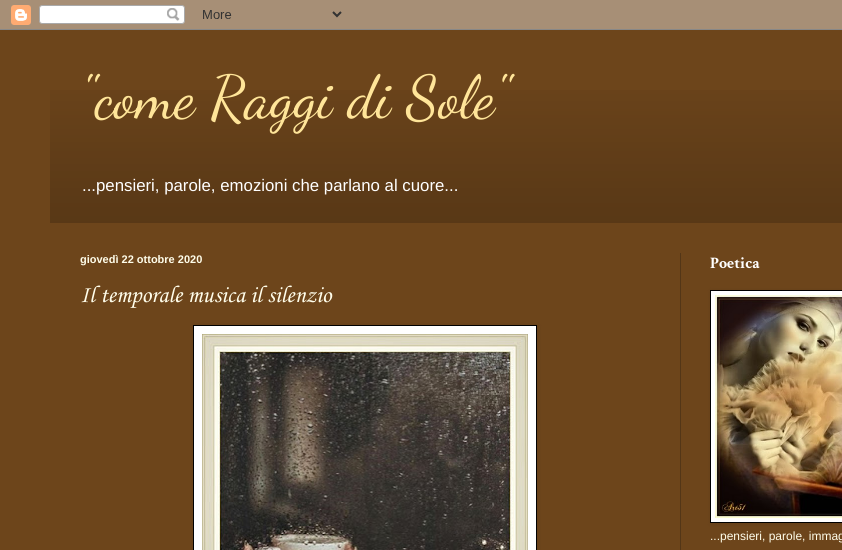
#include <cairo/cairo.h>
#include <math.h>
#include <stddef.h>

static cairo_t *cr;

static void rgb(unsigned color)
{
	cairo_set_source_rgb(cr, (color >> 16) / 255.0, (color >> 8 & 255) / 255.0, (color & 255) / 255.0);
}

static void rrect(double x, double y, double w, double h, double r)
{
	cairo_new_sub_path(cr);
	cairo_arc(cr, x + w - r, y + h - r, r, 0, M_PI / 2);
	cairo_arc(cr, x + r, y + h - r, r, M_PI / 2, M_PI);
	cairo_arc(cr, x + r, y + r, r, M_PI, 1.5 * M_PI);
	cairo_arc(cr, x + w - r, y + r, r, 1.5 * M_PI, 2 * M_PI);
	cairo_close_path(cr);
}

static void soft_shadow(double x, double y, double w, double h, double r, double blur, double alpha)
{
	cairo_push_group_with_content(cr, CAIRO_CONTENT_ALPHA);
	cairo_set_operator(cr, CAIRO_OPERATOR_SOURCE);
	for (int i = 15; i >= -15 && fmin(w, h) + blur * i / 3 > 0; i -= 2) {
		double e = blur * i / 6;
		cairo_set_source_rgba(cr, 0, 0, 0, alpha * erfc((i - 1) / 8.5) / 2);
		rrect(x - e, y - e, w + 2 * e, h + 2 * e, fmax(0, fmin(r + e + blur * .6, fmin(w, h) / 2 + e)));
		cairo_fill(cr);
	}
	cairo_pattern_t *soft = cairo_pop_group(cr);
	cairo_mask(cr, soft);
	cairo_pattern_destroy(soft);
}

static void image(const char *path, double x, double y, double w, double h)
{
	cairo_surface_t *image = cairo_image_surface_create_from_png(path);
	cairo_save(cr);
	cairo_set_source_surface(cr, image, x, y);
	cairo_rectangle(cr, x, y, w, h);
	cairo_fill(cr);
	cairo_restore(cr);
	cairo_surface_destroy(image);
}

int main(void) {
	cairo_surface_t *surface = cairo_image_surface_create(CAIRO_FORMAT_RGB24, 842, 550);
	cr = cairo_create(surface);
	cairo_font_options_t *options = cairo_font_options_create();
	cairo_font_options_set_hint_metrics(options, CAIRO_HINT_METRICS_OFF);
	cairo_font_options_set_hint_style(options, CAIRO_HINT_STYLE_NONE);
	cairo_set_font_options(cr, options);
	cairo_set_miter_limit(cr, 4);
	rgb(0x6d451b);
	cairo_paint(cr);
	image("img/1.png", 0, 0, 842, 30);
	image("img/2.png", 50, 90, 792, 133);
	rgb(0x533617);
	cairo_rectangle(cr, 680, 253, 1, 297);
	cairo_fill(cr);
	rgb(0x000000);
	soft_shadow(194, 326, 344, 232, 0, 2.5, 0.1);
	rgb(0xffffff);
	cairo_rectangle(cr, 193.5, 325.5, 343, 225);
	cairo_fill_preserve(cr);
	rgb(0x000000);
	cairo_set_line_width(cr, 1);
	cairo_stroke(cr);
	image("img/3.png", 202, 334, 326, 216);
	rgb(0x000000);
	soft_shadow(711, 291, 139, 233, 0, 2.5, 0.1);
	rgb(0xffffff);
	cairo_rectangle(cr, 710.5, 290.5, 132, 232);
	cairo_fill_preserve(cr);
	rgb(0x000000);
	cairo_stroke(cr);
	image("img/4.png", 715, 295, 127, 223);
	cairo_select_font_face(cr, "Dancing Script", CAIRO_FONT_SLANT_NORMAL, CAIRO_FONT_WEIGHT_NORMAL);
	cairo_set_font_size(cr, 60);
	rgb(0xffe599);
	cairo_move_to(cr, 80, 117);
	cairo_show_text(cr, "\"come Raggi di Sole\"");
	cairo_select_font_face(cr, "Liberation Sans", CAIRO_FONT_SLANT_NORMAL, CAIRO_FONT_WEIGHT_NORMAL);
	cairo_set_font_size(cr, 16.8);
	rgb(0xffffff);
	cairo_move_to(cr, 82, 191);
	cairo_show_text(cr, "...pensieri, parole, emozioni che parlano al cuore...");
	cairo_select_font_face(cr, "Liberation Sans", CAIRO_FONT_SLANT_NORMAL, CAIRO_FONT_WEIGHT_BOLD);
	cairo_set_font_size(cr, 11);
	rgb(0xfffdea);
	cairo_move_to(cr, 80, 263);
	cairo_show_text(cr, "giovedì 22 ottobre 2020");
	cairo_select_font_face(cr, "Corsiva", CAIRO_FONT_SLANT_NORMAL, CAIRO_FONT_WEIGHT_NORMAL);
	cairo_set_font_size(cr, 24);
	cairo_move_to(cr, 80, 302);
	cairo_show_text(cr, "Il temporale musica il silenzio");
	cairo_select_font_face(cr, "Crimson Text", CAIRO_FONT_SLANT_NORMAL, CAIRO_FONT_WEIGHT_BOLD);
	cairo_set_font_size(cr, 16);
	rgb(0xffffff);
	cairo_move_to(cr, 710, 268);
	cairo_show_text(cr, "Poetica");
	cairo_select_font_face(cr, "Liberation Sans", CAIRO_FONT_SLANT_NORMAL, CAIRO_FONT_WEIGHT_NORMAL);
	cairo_set_font_size(cr, 12);
	rgb(0xfffdea);
	cairo_move_to(cr, 710, 540);
	cairo_show_text(cr, "...pensieri, parole, immag");
	cairo_surface_write_to_png(surface, "page.png");
	cairo_font_options_destroy(options);
	cairo_destroy(cr);
	cairo_surface_destroy(surface);
	return 0;
}
